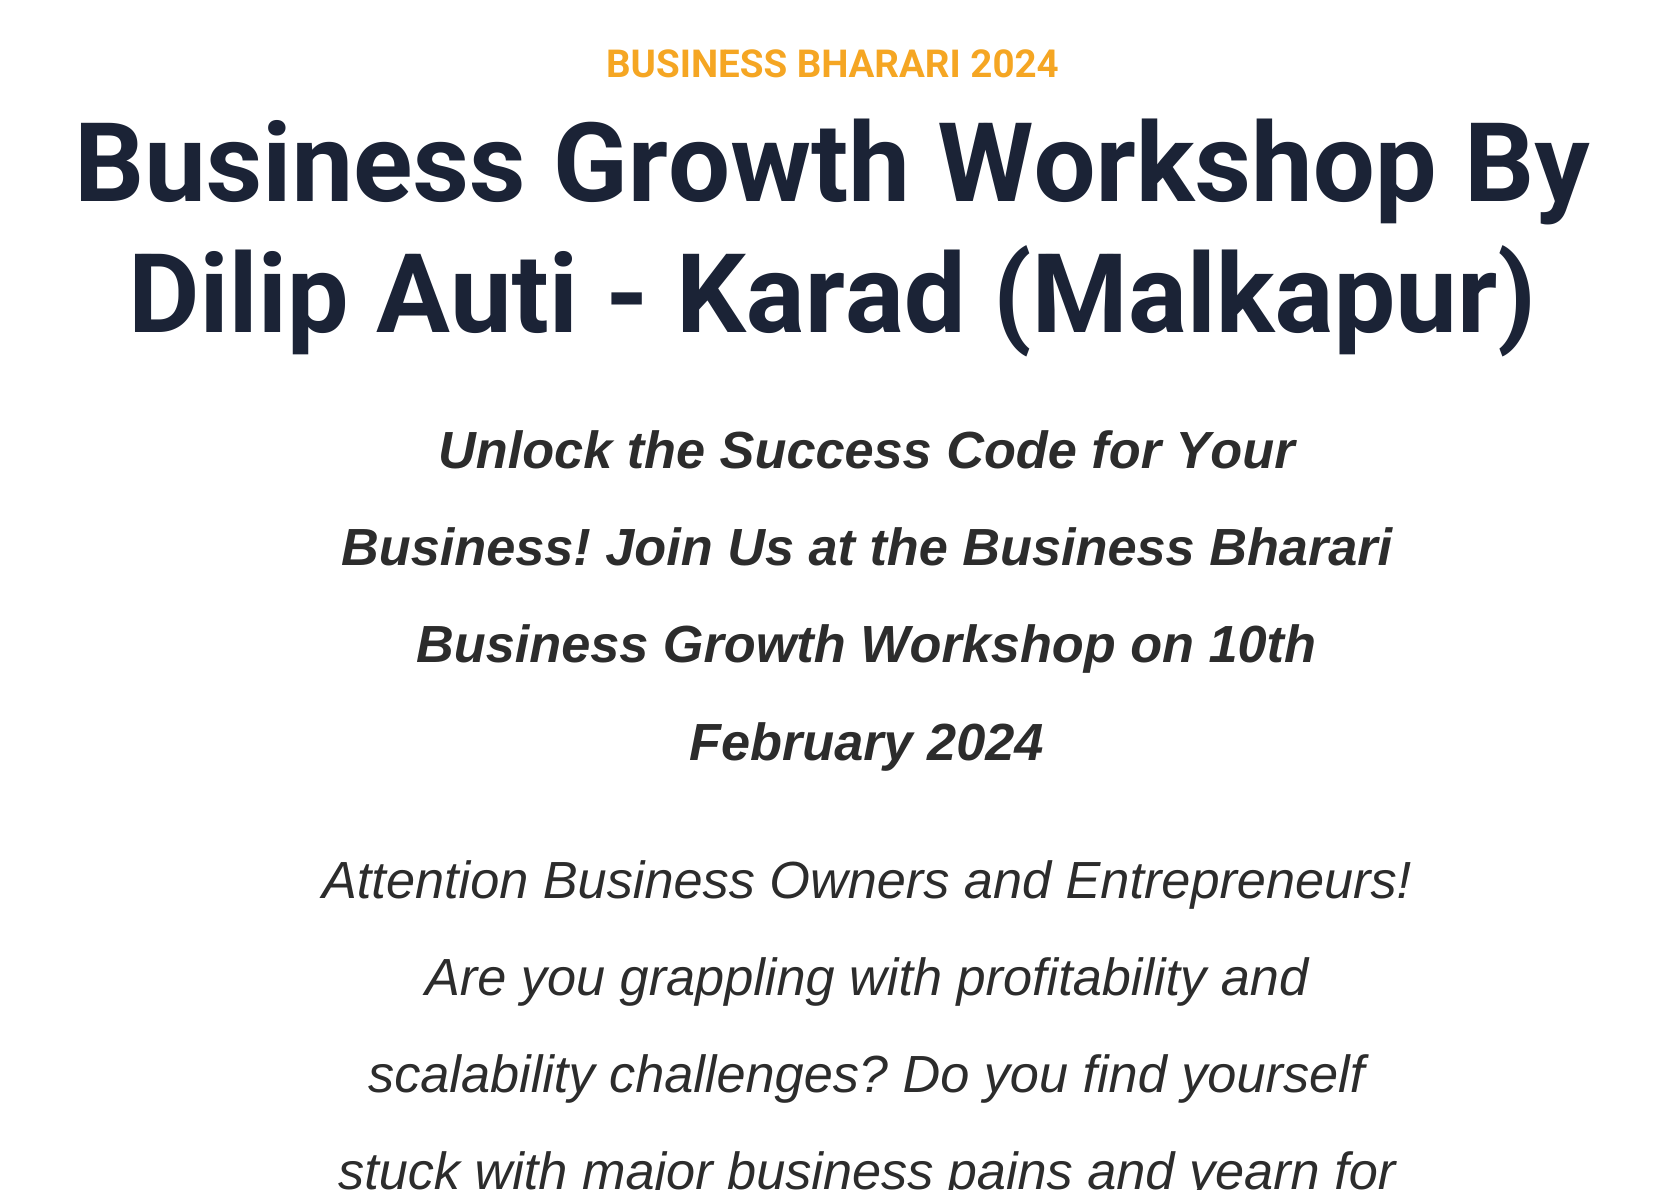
#include <cairo/cairo.h>
#include <math.h>
#include <stddef.h>

typedef struct { double x, y; const char *s; } line_t;
static cairo_t *cr;

static void rgb(unsigned color)
{
	cairo_set_source_rgb(cr, (color >> 16) / 255.0, (color >> 8 & 255) / 255.0, (color & 255) / 255.0);
}

int main(void) {
	cairo_surface_t *surface = cairo_image_surface_create(CAIRO_FORMAT_RGB24, 1663, 1190);
	cr = cairo_create(surface);
	cairo_font_options_t *options = cairo_font_options_create();
	cairo_font_options_set_hint_metrics(options, CAIRO_HINT_METRICS_OFF);
	cairo_font_options_set_hint_style(options, CAIRO_HINT_STYLE_NONE);
	cairo_set_font_options(cr, options);
	cairo_set_miter_limit(cr, 4);
	rgb(0xffffff);
	cairo_paint(cr);
	cairo_select_font_face(cr, "Roboto", CAIRO_FONT_SLANT_NORMAL, CAIRO_FONT_WEIGHT_BOLD);
	cairo_set_font_size(cr, 38.5);
	rgb(0xf5a623);
	cairo_move_to(cr, 606, 77);
	cairo_show_text(cr, "BUSINESS BHARARI 2024");
	cairo_set_font_size(cr, 110);
	rgb(0x1b2336);
	cairo_move_to(cr, 74, 201);
	cairo_show_text(cr, "Business Growth Workshop By");
	cairo_move_to(cr, 128, 332);
	cairo_show_text(cr, "Dilip Auti - Karad (Malkapur)");
	cairo_select_font_face(cr, "Liberation Sans", CAIRO_FONT_SLANT_ITALIC, CAIRO_FONT_WEIGHT_BOLD);
	cairo_set_font_size(cr, 52.25);
	rgb(0x2c2c2c);
	{
		static const line_t items[] = {
			{438, 468, "Unlock the Success Code for Your"},
			{341, 565, "Business! Join Us at the Business Bharari"},
			{416, 662, "Business Growth Workshop on 10th"},
			{689, 760, "February 2024"},
		};
		for (size_t i = 0; i < sizeof items / sizeof *items; i++) {
			cairo_move_to(cr, items[i].x, items[i].y);
			cairo_show_text(cr, items[i].s);
		}
	}
	cairo_select_font_face(cr, "Liberation Sans", CAIRO_FONT_SLANT_ITALIC, CAIRO_FONT_WEIGHT_NORMAL);
	{
		static const line_t items[] = {
			{322, 898, "Attention Business Owners and Entrepreneurs!"},
			{425, 995, "Are you grappling with profitability and"},
			{368, 1092, "scalability challenges? Do you find yourself"},
			{338, 1189, "stuck with major business pains and yearn for"},
		};
		for (size_t i = 0; i < sizeof items / sizeof *items; i++) {
			cairo_move_to(cr, items[i].x, items[i].y);
			cairo_show_text(cr, items[i].s);
		}
	}
	cairo_surface_write_to_png(surface, "page.png");
	cairo_font_options_destroy(options);
	cairo_destroy(cr);
	cairo_surface_destroy(surface);
	return 0;
}
